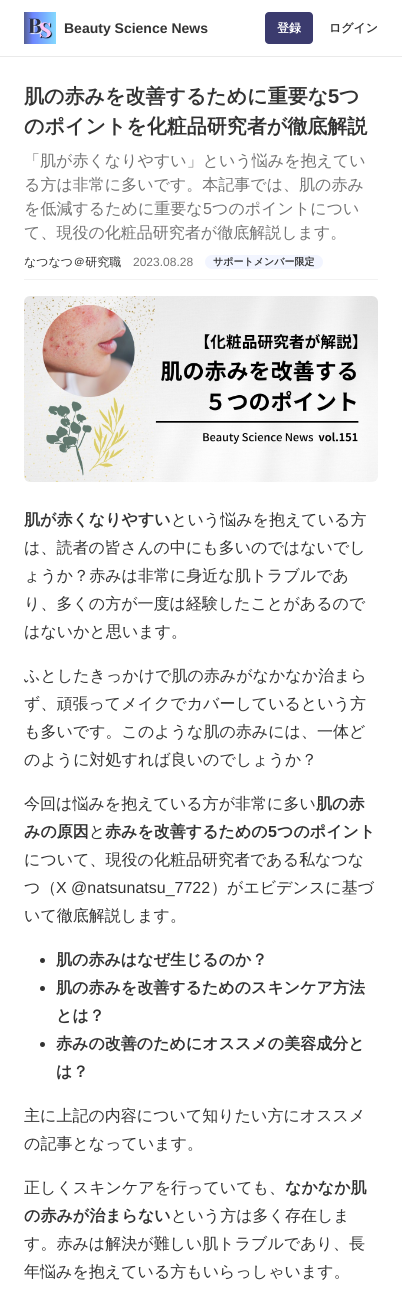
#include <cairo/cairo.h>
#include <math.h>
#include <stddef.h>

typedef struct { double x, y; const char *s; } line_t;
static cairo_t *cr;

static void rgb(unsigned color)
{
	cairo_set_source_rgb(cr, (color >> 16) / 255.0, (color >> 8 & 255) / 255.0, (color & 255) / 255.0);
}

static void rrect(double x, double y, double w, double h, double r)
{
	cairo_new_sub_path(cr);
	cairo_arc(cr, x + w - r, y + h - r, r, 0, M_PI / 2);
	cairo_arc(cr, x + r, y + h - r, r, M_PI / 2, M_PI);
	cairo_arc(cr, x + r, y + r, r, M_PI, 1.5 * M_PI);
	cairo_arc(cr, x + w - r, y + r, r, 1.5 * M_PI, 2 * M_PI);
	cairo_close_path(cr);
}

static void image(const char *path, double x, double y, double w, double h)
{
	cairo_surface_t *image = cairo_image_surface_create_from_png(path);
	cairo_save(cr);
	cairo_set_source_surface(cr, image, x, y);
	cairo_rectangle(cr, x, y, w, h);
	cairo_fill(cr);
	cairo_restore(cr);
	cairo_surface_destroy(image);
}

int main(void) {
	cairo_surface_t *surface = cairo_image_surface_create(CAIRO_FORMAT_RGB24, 402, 1297);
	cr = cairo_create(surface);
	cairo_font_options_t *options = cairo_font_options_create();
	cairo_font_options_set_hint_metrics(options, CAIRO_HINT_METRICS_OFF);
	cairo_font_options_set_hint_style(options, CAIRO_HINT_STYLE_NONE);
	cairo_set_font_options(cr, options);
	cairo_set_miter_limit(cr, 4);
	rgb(0xffffff);
	cairo_paint(cr);
	rgb(0xeaeaea);
	cairo_rectangle(cr, 0, 56, 402, 1);
	cairo_fill(cr);
	image("img/1.png", 24, 12, 32, 32);
	rgb(0x3b3b6e);
	rrect(265, 12, 48, 32, 4);
	cairo_fill(cr);
	rgb(0xf2f5ff);
	rrect(205, 255, 118, 14, 7);
	cairo_fill(cr);
	rgb(0xf2f2f2);
	cairo_rectangle(cr, 24, 279, 354, 1);
	cairo_fill(cr);
	image("img/2.png", 24, 296, 354, 186);
	rgb(0x333333);
	cairo_arc(cr, 42.5, 960.5, 2.5, 0, 2 * M_PI);
	cairo_fill(cr);
	cairo_arc(cr, 42.5, 988.5, 2.5, 0, 2 * M_PI);
	cairo_fill(cr);
	cairo_arc(cr, 42.5, 1044.5, 2.5, 0, 2 * M_PI);
	cairo_fill(cr);
	cairo_select_font_face(cr, "Liberation Sans", CAIRO_FONT_SLANT_NORMAL, CAIRO_FONT_WEIGHT_BOLD);
	cairo_set_font_size(cr, 14);
	cairo_move_to(cr, 64, 33);
	cairo_show_text(cr, "Beauty Science News");
	cairo_select_font_face(cr, "WenQuanYi Zen Hei", CAIRO_FONT_SLANT_NORMAL, CAIRO_FONT_WEIGHT_BOLD);
	cairo_set_font_size(cr, 12);
	rgb(0xffffff);
	cairo_move_to(cr, 277, 32);
	cairo_show_text(cr, "登録");
	rgb(0x333333);
	cairo_move_to(cr, 329, 32);
	cairo_show_text(cr, "ログイン");
	cairo_set_font_size(cr, 20);
	cairo_move_to(cr, 24, 103);
	cairo_show_text(cr, "肌の赤みを改善するために重要な");
	cairo_select_font_face(cr, "Liberation Sans", CAIRO_FONT_SLANT_NORMAL, CAIRO_FONT_WEIGHT_BOLD);
	cairo_move_to(cr, 328, 103);
	cairo_show_text(cr, "5");
	cairo_select_font_face(cr, "WenQuanYi Zen Hei", CAIRO_FONT_SLANT_NORMAL, CAIRO_FONT_WEIGHT_BOLD);
	cairo_move_to(cr, 339, 103);
	cairo_show_text(cr, "つ");
	cairo_move_to(cr, 24, 133);
	cairo_show_text(cr, "のポイントを化粧品研究者が徹底解説");
	cairo_select_font_face(cr, "WenQuanYi Zen Hei Medium", CAIRO_FONT_SLANT_NORMAL, CAIRO_FONT_WEIGHT_NORMAL);
	cairo_set_font_size(cr, 16);
	rgb(0x737373);
	{
		static const line_t items[] = {
			{24, 166, "「肌が赤くなりやすい」という悩みを抱えてい"},
			{24, 190, "る方は非常に多いです。本記事では、肌の赤み"},
			{24, 214, "を低減するために重要な"},
		};
		for (size_t i = 0; i < sizeof items / sizeof *items; i++) {
			cairo_move_to(cr, items[i].x, items[i].y);
			cairo_show_text(cr, items[i].s);
		}
	}
	cairo_select_font_face(cr, "Liberation Sans", CAIRO_FONT_SLANT_NORMAL, CAIRO_FONT_WEIGHT_NORMAL);
	cairo_move_to(cr, 203, 214);
	cairo_show_text(cr, "5");
	cairo_select_font_face(cr, "WenQuanYi Zen Hei Medium", CAIRO_FONT_SLANT_NORMAL, CAIRO_FONT_WEIGHT_NORMAL);
	cairo_move_to(cr, 212, 214);
	cairo_show_text(cr, "つのポイントについ");
	cairo_move_to(cr, 24, 238);
	cairo_show_text(cr, "て、現役の化粧品研究者が徹底解説します。");
	cairo_set_font_size(cr, 12);
	rgb(0x333333);
	cairo_move_to(cr, 24, 266);
	cairo_show_text(cr, "なつなつ＠研究職");
	cairo_select_font_face(cr, "Liberation Sans", CAIRO_FONT_SLANT_NORMAL, CAIRO_FONT_WEIGHT_NORMAL);
	rgb(0x737373);
	cairo_move_to(cr, 133, 266);
	cairo_show_text(cr, "2023.08.28");
	cairo_select_font_face(cr, "WenQuanYi Zen Hei", CAIRO_FONT_SLANT_NORMAL, CAIRO_FONT_WEIGHT_BOLD);
	cairo_set_font_size(cr, 10);
	rgb(0x333333);
	cairo_move_to(cr, 213, 265);
	cairo_show_text(cr, "サポートメンバー限定");
	cairo_set_font_size(cr, 16);
	cairo_move_to(cr, 24, 525);
	cairo_show_text(cr, "肌が赤くなりやすい");
	cairo_select_font_face(cr, "WenQuanYi Zen Hei Medium", CAIRO_FONT_SLANT_NORMAL, CAIRO_FONT_WEIGHT_NORMAL);
	{
		static const line_t items[] = {
			{171, 525, "という悩みを抱えている方"},
			{24, 553, "は、読者の皆さんの中にも多いのではないでし"},
			{24, 581, "ょうか？赤みは非常に身近な肌トラブルであ"},
			{24, 609, "り、多くの方が一度は経験したことがあるので"},
			{24, 637, "はないかと思います。"},
			{24, 681, "ふとしたきっかけで肌の赤みがなかなか治まら"},
			{24, 709, "ず、頑張ってメイクでカバーしているという方"},
			{24, 737, "も多いです。このような肌の赤みには、一体ど"},
			{24, 765, "のように対処すれば良いのでしょうか？"},
			{24, 809, "今回は悩みを抱えている方が非常に多い"},
		};
		for (size_t i = 0; i < sizeof items / sizeof *items; i++) {
			cairo_move_to(cr, items[i].x, items[i].y);
			cairo_show_text(cr, items[i].s);
		}
	}
	cairo_select_font_face(cr, "WenQuanYi Zen Hei", CAIRO_FONT_SLANT_NORMAL, CAIRO_FONT_WEIGHT_BOLD);
	cairo_move_to(cr, 316, 809);
	cairo_show_text(cr, "肌の赤");
	cairo_move_to(cr, 24, 837);
	cairo_show_text(cr, "みの原因");
	cairo_select_font_face(cr, "WenQuanYi Zen Hei Medium", CAIRO_FONT_SLANT_NORMAL, CAIRO_FONT_WEIGHT_NORMAL);
	cairo_move_to(cr, 89, 837);
	cairo_show_text(cr, "と");
	cairo_select_font_face(cr, "WenQuanYi Zen Hei", CAIRO_FONT_SLANT_NORMAL, CAIRO_FONT_WEIGHT_BOLD);
	cairo_move_to(cr, 105, 837);
	cairo_show_text(cr, "赤みを改善するための");
	cairo_select_font_face(cr, "Liberation Sans", CAIRO_FONT_SLANT_NORMAL, CAIRO_FONT_WEIGHT_BOLD);
	cairo_move_to(cr, 268, 837);
	cairo_show_text(cr, "5");
	cairo_select_font_face(cr, "WenQuanYi Zen Hei", CAIRO_FONT_SLANT_NORMAL, CAIRO_FONT_WEIGHT_BOLD);
	cairo_move_to(cr, 277, 837);
	cairo_show_text(cr, "つのポイント");
	cairo_select_font_face(cr, "WenQuanYi Zen Hei Medium", CAIRO_FONT_SLANT_NORMAL, CAIRO_FONT_WEIGHT_NORMAL);
	cairo_move_to(cr, 24, 865);
	cairo_show_text(cr, "について、現役の化粧品研究者である私なつな");
	cairo_move_to(cr, 24, 893);
	cairo_show_text(cr, "つ（");
	cairo_select_font_face(cr, "Liberation Sans", CAIRO_FONT_SLANT_NORMAL, CAIRO_FONT_WEIGHT_NORMAL);
	cairo_move_to(cr, 56, 893);
	cairo_show_text(cr, "X @natsunatsu_7722");
	cairo_select_font_face(cr, "WenQuanYi Zen Hei Medium", CAIRO_FONT_SLANT_NORMAL, CAIRO_FONT_WEIGHT_NORMAL);
	cairo_move_to(cr, 211, 893);
	cairo_show_text(cr, "）がエビデンスに基づ");
	cairo_move_to(cr, 24, 921);
	cairo_show_text(cr, "いて徹底解説します。");
	cairo_select_font_face(cr, "WenQuanYi Zen Hei", CAIRO_FONT_SLANT_NORMAL, CAIRO_FONT_WEIGHT_BOLD);
	{
		static const line_t items[] = {
			{56, 965, "肌の赤みはなぜ生じるのか？"},
			{56, 993, "肌の赤みを改善するためのスキンケア方法"},
			{56, 1021, "とは？"},
			{56, 1049, "赤みの改善のためにオススメの美容成分と"},
			{56, 1077, "は？"},
		};
		for (size_t i = 0; i < sizeof items / sizeof *items; i++) {
			cairo_move_to(cr, items[i].x, items[i].y);
			cairo_show_text(cr, items[i].s);
		}
	}
	cairo_select_font_face(cr, "WenQuanYi Zen Hei Medium", CAIRO_FONT_SLANT_NORMAL, CAIRO_FONT_WEIGHT_NORMAL);
	{
		static const line_t items[] = {
			{24, 1121, "主に上記の内容について知りたい方にオススメ"},
			{24, 1149, "の記事となっています。"},
			{24, 1193, "正しくスキンケアを行っていても、"},
		};
		for (size_t i = 0; i < sizeof items / sizeof *items; i++) {
			cairo_move_to(cr, items[i].x, items[i].y);
			cairo_show_text(cr, items[i].s);
		}
	}
	cairo_select_font_face(cr, "WenQuanYi Zen Hei", CAIRO_FONT_SLANT_NORMAL, CAIRO_FONT_WEIGHT_BOLD);
	cairo_move_to(cr, 285, 1193);
	cairo_show_text(cr, "なかなか肌");
	cairo_move_to(cr, 24, 1221);
	cairo_show_text(cr, "の赤みが治まらない");
	cairo_select_font_face(cr, "WenQuanYi Zen Hei Medium", CAIRO_FONT_SLANT_NORMAL, CAIRO_FONT_WEIGHT_NORMAL);
	{
		static const line_t items[] = {
			{171, 1221, "という方は多く存在しま"},
			{24, 1249, "す。赤みは解決が難しい肌トラブルであり、長"},
			{24, 1277, "年悩みを抱えている方もいらっしゃいます。"},
		};
		for (size_t i = 0; i < sizeof items / sizeof *items; i++) {
			cairo_move_to(cr, items[i].x, items[i].y);
			cairo_show_text(cr, items[i].s);
		}
	}
	cairo_surface_write_to_png(surface, "page.png");
	cairo_font_options_destroy(options);
	cairo_destroy(cr);
	cairo_surface_destroy(surface);
	return 0;
}
